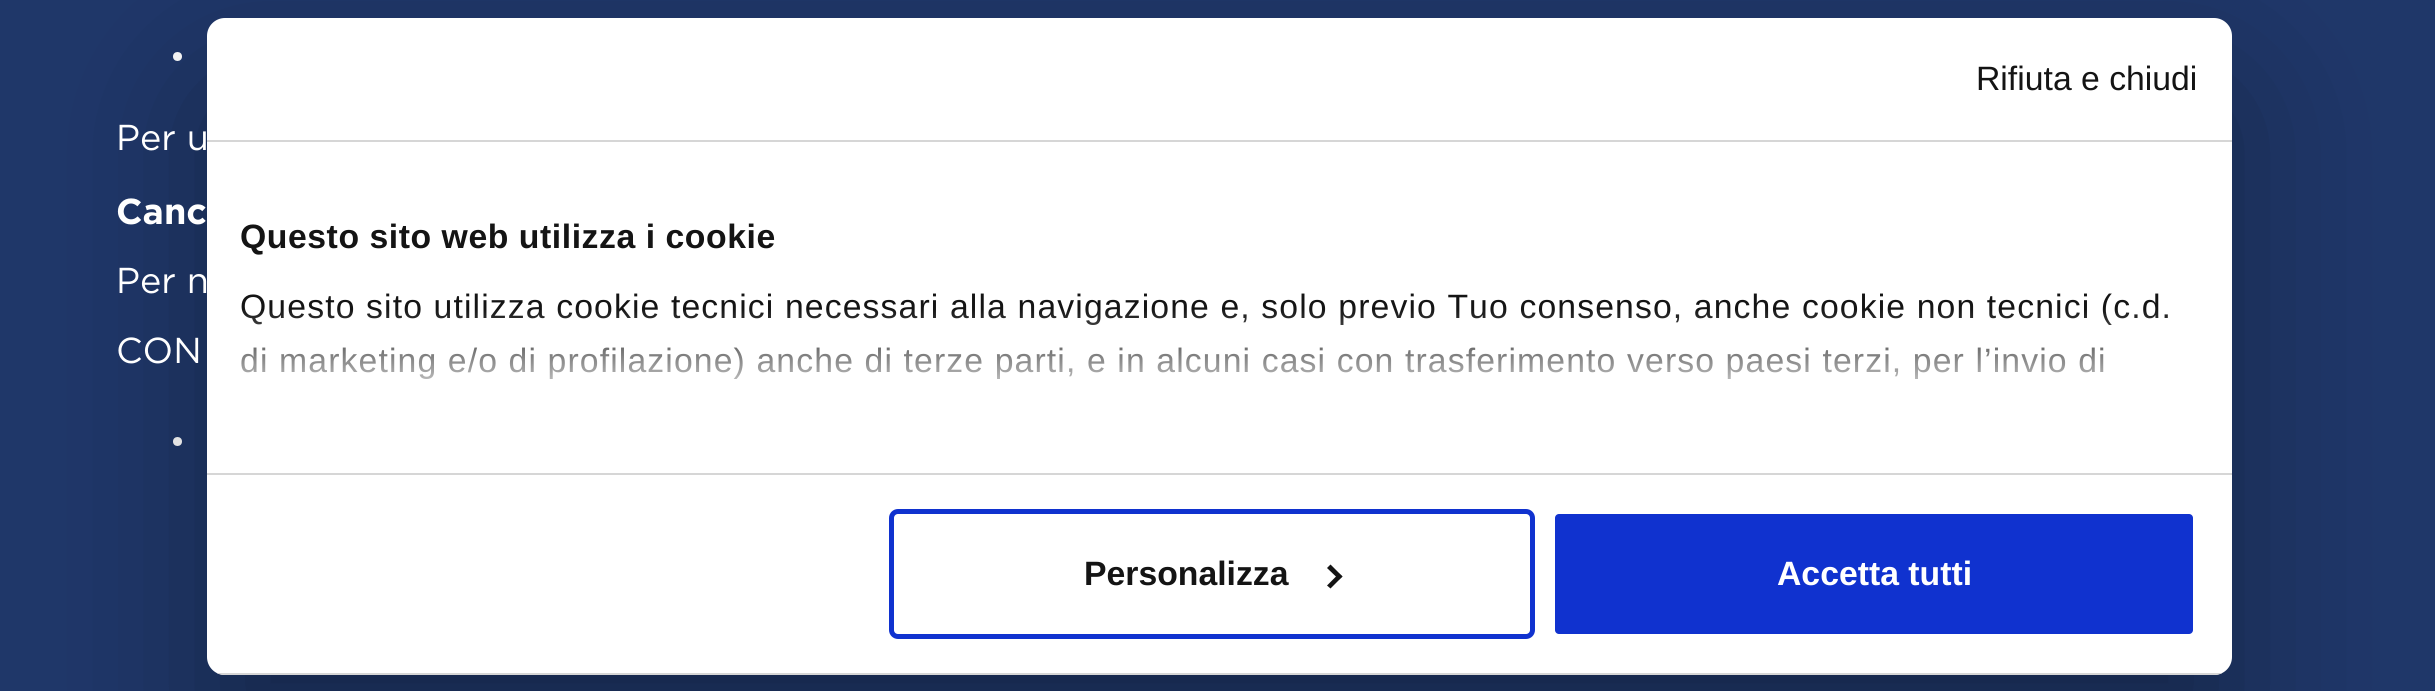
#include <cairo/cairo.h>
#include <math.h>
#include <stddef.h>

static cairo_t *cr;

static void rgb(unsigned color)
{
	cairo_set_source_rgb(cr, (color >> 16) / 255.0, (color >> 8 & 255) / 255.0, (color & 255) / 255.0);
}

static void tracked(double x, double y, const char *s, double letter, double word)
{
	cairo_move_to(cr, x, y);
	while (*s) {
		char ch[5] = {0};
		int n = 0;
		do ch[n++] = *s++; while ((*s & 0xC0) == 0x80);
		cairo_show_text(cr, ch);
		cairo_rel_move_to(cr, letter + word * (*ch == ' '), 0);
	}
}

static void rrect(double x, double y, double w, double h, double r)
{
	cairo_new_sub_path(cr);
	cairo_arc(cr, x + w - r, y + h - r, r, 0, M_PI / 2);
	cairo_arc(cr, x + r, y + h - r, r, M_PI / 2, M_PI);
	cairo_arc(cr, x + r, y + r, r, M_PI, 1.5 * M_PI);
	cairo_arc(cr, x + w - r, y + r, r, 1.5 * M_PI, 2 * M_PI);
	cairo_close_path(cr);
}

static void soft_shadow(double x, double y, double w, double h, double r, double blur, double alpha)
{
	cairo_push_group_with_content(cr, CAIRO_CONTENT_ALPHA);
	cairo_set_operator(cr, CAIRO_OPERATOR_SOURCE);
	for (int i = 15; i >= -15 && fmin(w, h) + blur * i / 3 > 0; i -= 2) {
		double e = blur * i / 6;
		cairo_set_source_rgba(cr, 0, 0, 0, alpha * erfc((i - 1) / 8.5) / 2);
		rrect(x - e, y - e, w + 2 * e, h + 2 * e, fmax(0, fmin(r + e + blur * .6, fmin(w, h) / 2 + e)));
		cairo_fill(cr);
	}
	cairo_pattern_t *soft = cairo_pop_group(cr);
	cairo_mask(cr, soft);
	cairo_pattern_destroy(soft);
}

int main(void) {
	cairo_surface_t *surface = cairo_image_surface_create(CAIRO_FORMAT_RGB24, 2435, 691);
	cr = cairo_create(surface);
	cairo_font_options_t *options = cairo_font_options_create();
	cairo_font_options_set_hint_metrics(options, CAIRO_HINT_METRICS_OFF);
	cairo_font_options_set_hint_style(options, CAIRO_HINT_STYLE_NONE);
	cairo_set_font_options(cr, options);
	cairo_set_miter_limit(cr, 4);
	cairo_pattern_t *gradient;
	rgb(0x1f3769);
	cairo_paint(cr);
	rgb(0xffffff);
	cairo_arc(cr, 177.5, 56.5, 4.5, 0, 2 * M_PI);
	cairo_fill(cr);
	cairo_arc(cr, 177.5, 441.5, 4.5, 0, 2 * M_PI);
	cairo_fill(cr);
	rgb(0x000000);
	soft_shadow(207, 90, 2025, 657, 18, 76.5, 0.3);
	rgb(0xffffff);
	rrect(207, 18, 2025, 657, 18);
	cairo_fill(cr);
	rgb(0xd6d6d6);
	cairo_rectangle(cr, 207, 140, 2025, 2);
	cairo_fill(cr);
	cairo_rectangle(cr, 207, 473, 2025, 2);
	cairo_fill(cr);
	cairo_save(cr);
	rrect(207, 18, 2025, 657, 18);
	cairo_clip(cr);
	cairo_rectangle(cr, 217, 673, 2005, 2);
	cairo_fill(cr);
	cairo_restore(cr);
	rrect(891.5, 511.5, 641, 125, 6.5);
	rgb(0x1032cf);
	cairo_set_line_width(cr, 5);
	cairo_stroke(cr);
	rgb(0x141414);
	cairo_new_path(cr);
	cairo_move_to(cr, 1330.5, 564.5);
	cairo_line_to(cr, 1342.5, 576.5);
	cairo_line_to(cr, 1339, 579.5);
	cairo_line_to(cr, 1327, 568);
	cairo_close_path(cr);
	cairo_fill(cr);
	cairo_new_path(cr);
	cairo_move_to(cr, 1339, 573.5);
	cairo_line_to(cr, 1342.5, 576.5);
	cairo_line_to(cr, 1330.5, 588.5);
	cairo_line_to(cr, 1327, 585.5);
	cairo_close_path(cr);
	cairo_fill(cr);
	rgb(0x1032cf);
	rrect(1552.5, 511.5, 643, 125, 6.5);
	cairo_fill_preserve(cr);
	rgb(0xffffff);
	cairo_stroke(cr);
	cairo_select_font_face(cr, "Gotham", CAIRO_FONT_SLANT_NORMAL, CAIRO_FONT_WEIGHT_NORMAL);
	cairo_set_font_size(cr, 36);
	cairo_move_to(cr, 116, 150);
	cairo_show_text(cr, "Per u");
	cairo_select_font_face(cr, "Gotham", CAIRO_FONT_SLANT_NORMAL, CAIRO_FONT_WEIGHT_BOLD);
	cairo_move_to(cr, 116, 224);
	cairo_show_text(cr, "Canc");
	cairo_select_font_face(cr, "Gotham", CAIRO_FONT_SLANT_NORMAL, CAIRO_FONT_WEIGHT_NORMAL);
	cairo_move_to(cr, 116, 293);
	cairo_show_text(cr, "Per n");
	cairo_move_to(cr, 116, 363);
	cairo_show_text(cr, "CON");
	cairo_select_font_face(cr, "Liberation Sans", CAIRO_FONT_SLANT_NORMAL, CAIRO_FONT_WEIGHT_NORMAL);
	cairo_set_font_size(cr, 33.75);
	rgb(0x141414);
	cairo_move_to(cr, 1976, 90);
	cairo_show_text(cr, "Rifiuta e chiudi");
	cairo_select_font_face(cr, "Liberation Sans", CAIRO_FONT_SLANT_NORMAL, CAIRO_FONT_WEIGHT_BOLD);
	tracked(240, 248, "Questo sito web utilizza i cookie", 0.55, 0);
	cairo_select_font_face(cr, "Liberation Sans", CAIRO_FONT_SLANT_NORMAL, CAIRO_FONT_WEIGHT_NORMAL);
	tracked(240, 318, "Questo sito utilizza cookie tecnici necessari alla navigazione e, solo previo Tuo consenso, anche cookie non tecnici (c.d.", 1.12, 0);
	tracked(240, 372, "di marketing e/o di profilazione) anche di terze parti, e in alcuni casi con trasferimento verso paesi terzi, per l’invio di", 1.12, 0);
	gradient = cairo_pattern_create_linear(1205, 473, 1205, 308);
	cairo_pattern_add_color_stop_rgba(gradient, 0, 1, 1, 1, 1);
	cairo_pattern_add_color_stop_rgba(gradient, 0.5, 1, 1, 1, 0.8);
	cairo_pattern_add_color_stop_rgba(gradient, 1, 1, 1, 1, 0);
	cairo_set_source(cr, gradient);
	cairo_pattern_destroy(gradient);
	cairo_rectangle(cr, 241, 310, 1927, 69);
	cairo_fill(cr);
	cairo_select_font_face(cr, "Liberation Sans", CAIRO_FONT_SLANT_NORMAL, CAIRO_FONT_WEIGHT_BOLD);
	rgb(0x141414);
	cairo_move_to(cr, 1084, 585);
	cairo_show_text(cr, "Personalizza");
	rgb(0xffffff);
	cairo_move_to(cr, 1777, 585);
	cairo_show_text(cr, "Accetta tutti");
	cairo_surface_write_to_png(surface, "page.png");
	cairo_font_options_destroy(options);
	cairo_destroy(cr);
	cairo_surface_destroy(surface);
	return 0;
}
